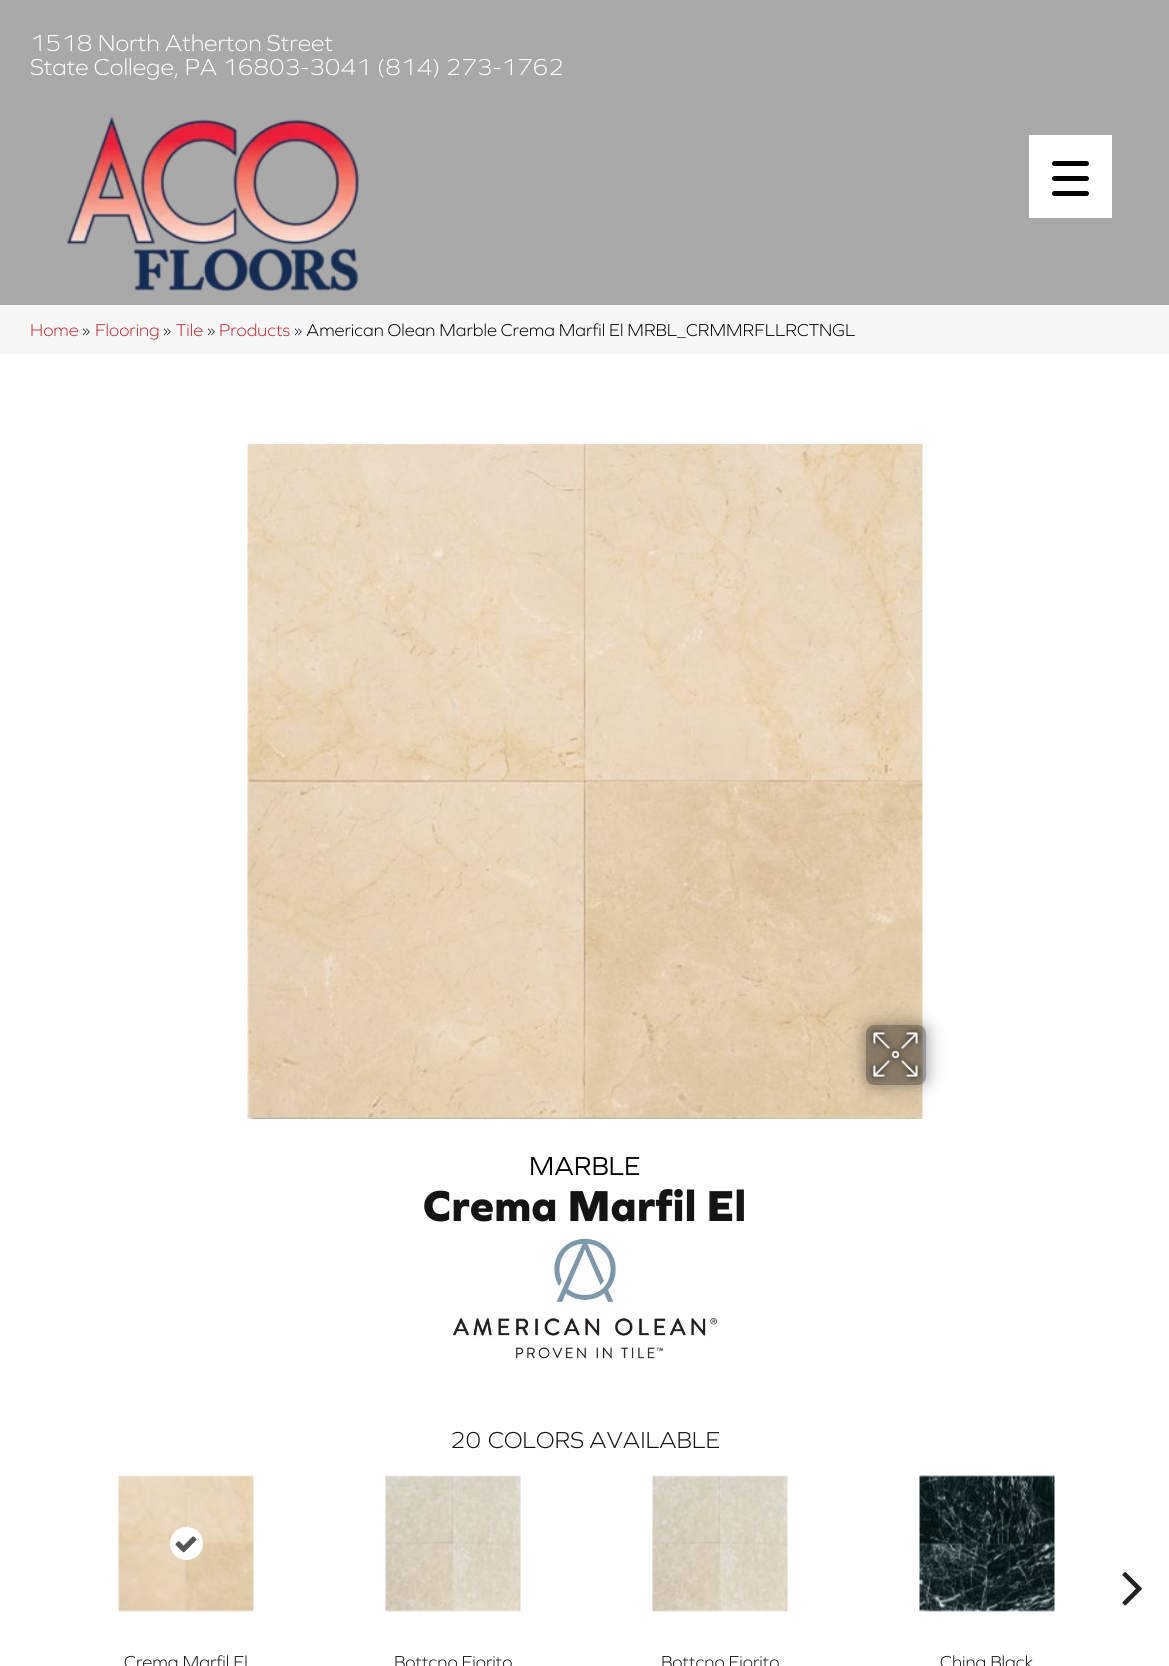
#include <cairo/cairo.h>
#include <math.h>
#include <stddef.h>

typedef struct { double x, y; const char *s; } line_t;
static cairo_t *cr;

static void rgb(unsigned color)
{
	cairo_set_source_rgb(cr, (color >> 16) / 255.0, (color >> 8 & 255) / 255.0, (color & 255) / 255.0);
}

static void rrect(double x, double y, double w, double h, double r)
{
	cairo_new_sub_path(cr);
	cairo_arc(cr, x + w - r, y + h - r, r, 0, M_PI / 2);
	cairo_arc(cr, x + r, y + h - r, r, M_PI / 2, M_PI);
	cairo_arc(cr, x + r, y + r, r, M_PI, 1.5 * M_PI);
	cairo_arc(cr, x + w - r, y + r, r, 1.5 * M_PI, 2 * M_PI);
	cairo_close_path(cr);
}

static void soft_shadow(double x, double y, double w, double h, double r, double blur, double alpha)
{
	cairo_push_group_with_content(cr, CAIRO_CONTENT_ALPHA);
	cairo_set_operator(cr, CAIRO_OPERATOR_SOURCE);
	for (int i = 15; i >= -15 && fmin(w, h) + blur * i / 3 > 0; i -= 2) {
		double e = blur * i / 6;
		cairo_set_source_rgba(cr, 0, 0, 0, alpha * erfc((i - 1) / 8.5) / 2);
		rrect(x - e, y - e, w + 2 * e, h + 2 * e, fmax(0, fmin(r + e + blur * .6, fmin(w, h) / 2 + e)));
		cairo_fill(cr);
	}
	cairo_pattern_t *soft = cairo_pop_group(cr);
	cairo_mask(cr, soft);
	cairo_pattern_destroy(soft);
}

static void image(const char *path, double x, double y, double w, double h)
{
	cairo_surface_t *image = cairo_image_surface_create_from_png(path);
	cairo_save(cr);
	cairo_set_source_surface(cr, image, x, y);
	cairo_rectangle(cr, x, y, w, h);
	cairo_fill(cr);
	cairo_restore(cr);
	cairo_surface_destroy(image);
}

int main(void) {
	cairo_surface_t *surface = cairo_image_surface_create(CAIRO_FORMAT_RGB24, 1169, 1666);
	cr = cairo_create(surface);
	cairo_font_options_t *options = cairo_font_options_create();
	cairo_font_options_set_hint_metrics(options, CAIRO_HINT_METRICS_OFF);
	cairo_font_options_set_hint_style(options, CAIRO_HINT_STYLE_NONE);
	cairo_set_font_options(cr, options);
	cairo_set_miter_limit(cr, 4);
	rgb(0xffffff);
	cairo_paint(cr);
	rgb(0xa9a9a9);
	cairo_rectangle(cr, 0, 0, 1169, 305);
	cairo_fill(cr);
	image("img/1.png", 66, 116, 293, 176);
	rgb(0xf7f7f7);
	cairo_rectangle(cr, 0, 305, 1169, 49);
	cairo_fill(cr);
	image("img/2.png", 247, 444, 676, 675);
	cairo_save(cr);
	cairo_set_fill_rule(cr, CAIRO_FILL_RULE_EVEN_ODD);
	cairo_new_path(cr);
	cairo_move_to(cr, 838, 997);
	cairo_line_to(cr, 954, 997);
	cairo_line_to(cr, 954, 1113);
	cairo_line_to(cr, 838, 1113);
	cairo_close_path(cr);
	cairo_move_to(cr, 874, 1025);
	cairo_line_to(cr, 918, 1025);
	cairo_curve_to(cr, 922.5, 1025, 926, 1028.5, 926, 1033);
	cairo_line_to(cr, 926, 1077);
	cairo_curve_to(cr, 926, 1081.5, 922.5, 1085, 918, 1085);
	cairo_line_to(cr, 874, 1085);
	cairo_curve_to(cr, 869.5, 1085, 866, 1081.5, 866, 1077);
	cairo_line_to(cr, 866, 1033);
	cairo_curve_to(cr, 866, 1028.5, 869.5, 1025, 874, 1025);
	cairo_close_path(cr);
	cairo_clip(cr);
	rgb(0x000000);
	soft_shadow(866, 1025, 60, 60, 8, 9, 0.41);
	cairo_restore(cr);
	cairo_set_source_rgba(cr, 0, 0, 0, 0.4);
	rrect(866, 1025, 60, 60, 8);
	cairo_fill(cr);
	image("img/3.png", 868, 1027, 55, 55);
	image("img/4.png", 453, 1238, 264, 121);
	image("img/5.png", 1122, 1572, 20, 34);
	image("img/6.png", 118, 1475, 136, 137);
	rgb(0xffffff);
	cairo_arc(cr, 186.5, 1543.5, 16.5, 0, 2 * M_PI);
	cairo_fill(cr);
	image("img/7.png", 175, 1536, 22, 17);
	image("img/8.png", 385, 1475, 136, 137);
	image("img/9.png", 652, 1475, 136, 137);
	image("img/10.png", 919, 1475, 136, 137);
	cairo_rectangle(cr, 1029, 135, 83, 83);
	cairo_fill(cr);
	rgb(0x000000);
	rrect(1052, 176, 37, 5, 2.5);
	cairo_fill(cr);
	rrect(1052, 161, 37, 5, 2.5);
	cairo_fill(cr);
	rrect(1052, 191, 37, 5, 2.5);
	cairo_fill(cr);
	cairo_select_font_face(cr, "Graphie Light", CAIRO_FONT_SLANT_NORMAL, CAIRO_FONT_WEIGHT_NORMAL);
	cairo_set_font_size(cr, 24);
	rgb(0xffffff);
	cairo_move_to(cr, 30, 51);
	cairo_show_text(cr, "1518 North Atherton Street");
	cairo_move_to(cr, 30, 75);
	cairo_show_text(cr, "State College, PA 16803-3041 (814) 273-1762");
	cairo_set_font_size(cr, 17.85);
	rgb(0xc42a31);
	cairo_move_to(cr, 30, 336);
	cairo_show_text(cr, "Home");
	rgb(0x000000);
	cairo_move_to(cr, 82, 336);
	cairo_show_text(cr, "»");
	rgb(0xc42a31);
	cairo_move_to(cr, 95, 336);
	cairo_show_text(cr, "Flooring");
	rgb(0x000000);
	cairo_move_to(cr, 163, 336);
	cairo_show_text(cr, "»");
	rgb(0xc42a31);
	cairo_move_to(cr, 176, 336);
	cairo_show_text(cr, "Tile");
	rgb(0x000000);
	cairo_move_to(cr, 207, 336);
	cairo_show_text(cr, "»");
	rgb(0xc42a31);
	cairo_move_to(cr, 219, 336);
	cairo_show_text(cr, "Products");
	rgb(0x000000);
	cairo_move_to(cr, 294, 336);
	cairo_show_text(cr, "» American Olean Marble Crema Marfil El MRBL_CRMMRFLLRCTNGL");
	cairo_select_font_face(cr, "Graphie", CAIRO_FONT_SLANT_NORMAL, CAIRO_FONT_WEIGHT_NORMAL);
	cairo_set_font_size(cr, 27);
	cairo_move_to(cr, 529, 1175);
	cairo_show_text(cr, "MARBLE");
	cairo_select_font_face(cr, "Graphie ExtraBold", CAIRO_FONT_SLANT_NORMAL, CAIRO_FONT_WEIGHT_NORMAL);
	cairo_set_font_size(cr, 45);
	rgb(0x141414);
	cairo_move_to(cr, 423, 1221);
	cairo_show_text(cr, "Crema Marfil El");
	cairo_select_font_face(cr, "Graphie Light", CAIRO_FONT_SLANT_NORMAL, CAIRO_FONT_WEIGHT_NORMAL);
	cairo_set_font_size(cr, 24);
	cairo_move_to(cr, 450, 1448);
	cairo_show_text(cr, "20");
	cairo_move_to(cr, 488, 1448);
	cairo_show_text(cr, "COLORS AVAILABLE");
	cairo_set_font_size(cr, 18);
	{
		static const line_t items[] = {
			{124, 1668, "Crema Marfil El"},
			{394, 1668, "Bottcno Fiorito"},
			{661, 1668, "Bottcno Fiorito"},
			{940, 1668, "China Black"},
		};
		for (size_t i = 0; i < sizeof items / sizeof *items; i++) {
			cairo_move_to(cr, items[i].x, items[i].y);
			cairo_show_text(cr, items[i].s);
		}
	}
	cairo_surface_write_to_png(surface, "page.png");
	cairo_font_options_destroy(options);
	cairo_destroy(cr);
	cairo_surface_destroy(surface);
	return 0;
}
